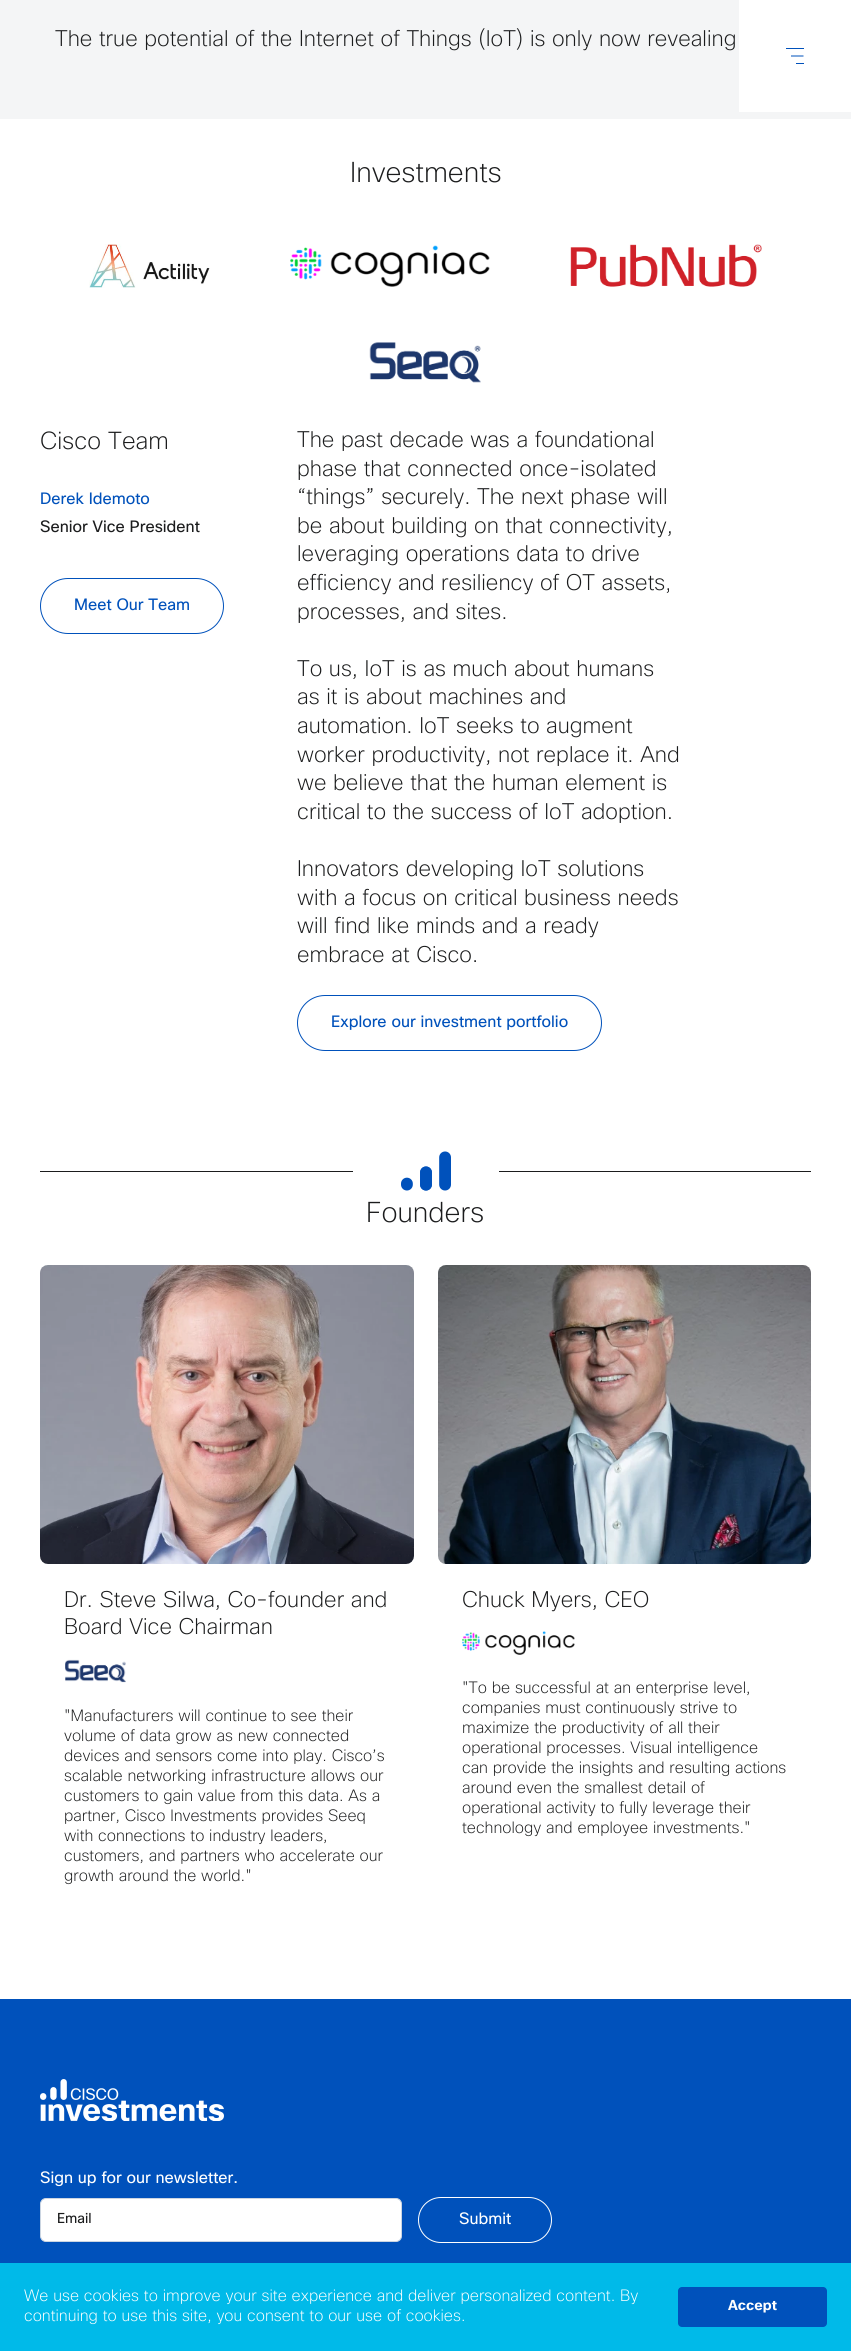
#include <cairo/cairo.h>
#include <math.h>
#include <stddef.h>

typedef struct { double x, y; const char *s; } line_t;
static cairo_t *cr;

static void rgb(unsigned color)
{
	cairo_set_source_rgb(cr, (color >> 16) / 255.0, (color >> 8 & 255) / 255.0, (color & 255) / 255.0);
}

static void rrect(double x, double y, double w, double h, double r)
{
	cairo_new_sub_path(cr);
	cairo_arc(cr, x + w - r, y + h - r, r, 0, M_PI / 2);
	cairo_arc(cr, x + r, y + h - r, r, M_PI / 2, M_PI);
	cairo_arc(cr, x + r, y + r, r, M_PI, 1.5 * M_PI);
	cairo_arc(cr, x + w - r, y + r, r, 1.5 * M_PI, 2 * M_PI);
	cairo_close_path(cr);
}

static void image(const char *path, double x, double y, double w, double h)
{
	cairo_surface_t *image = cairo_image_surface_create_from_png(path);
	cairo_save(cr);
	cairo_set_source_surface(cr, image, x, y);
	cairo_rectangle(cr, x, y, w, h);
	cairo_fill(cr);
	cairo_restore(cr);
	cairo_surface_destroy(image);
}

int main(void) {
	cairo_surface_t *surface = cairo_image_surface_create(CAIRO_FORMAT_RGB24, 851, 2351);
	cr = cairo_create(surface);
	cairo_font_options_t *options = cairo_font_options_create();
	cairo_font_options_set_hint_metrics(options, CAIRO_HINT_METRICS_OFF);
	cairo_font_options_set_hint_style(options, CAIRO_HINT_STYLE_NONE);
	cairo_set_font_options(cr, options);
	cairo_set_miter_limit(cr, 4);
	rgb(0xffffff);
	cairo_paint(cr);
	rgb(0xf4f5f6);
	cairo_rectangle(cr, 0, 0, 851, 119);
	cairo_fill(cr);
	image("img/1.png", 89, 244, 121, 44);
	image("img/2.png", 290, 245, 200, 42);
	image("img/3.png", 570, 244, 192, 43);
	image("img/4.png", 369, 342, 112, 41);
	rrect(40.5, 578.5, 183, 55, 27.5);
	rgb(0x0051bb);
	cairo_set_line_width(cr, 1);
	cairo_stroke(cr);
	rrect(297.5, 995.5, 304, 55, 27.5);
	cairo_stroke(cr);
	rgb(0x1b1c1d);
	cairo_rectangle(cr, 40, 1171, 313, 1);
	cairo_fill(cr);
	image("img/5.png", 401, 1151, 50, 40);
	cairo_rectangle(cr, 499, 1171, 312, 1);
	cairo_fill(cr);
	image("img/6.png", 40, 1265, 374, 299);
	image("img/7.png", 65, 1659, 61, 24);
	image("img/8.png", 438, 1265, 373, 299);
	image("img/9.png", 462, 1631, 113, 24);
	rgb(0xffffff);
	cairo_rectangle(cr, 739, 0, 112, 112);
	cairo_fill(cr);
	rgb(0x0051bb);
	cairo_rectangle(cr, 786, 48, 18, 1);
	cairo_fill(cr);
	cairo_new_path(cr);
	cairo_move_to(cr, 803.5, 56);
	cairo_line_to(cr, 791, 56);
	cairo_stroke(cr);
	cairo_rectangle(cr, 796, 63, 8, 1);
	cairo_fill(cr);
	cairo_rectangle(cr, 0, 1999, 851, 264);
	cairo_fill(cr);
	image("img/10.png", 40, 2079, 184, 42);
	rgb(0xffffff);
	rrect(40.5, 2198.5, 361, 43, 5.5);
	cairo_fill_preserve(cr);
	rgb(0xcbd5e1);
	cairo_stroke(cr);
	rrect(418.5, 2197.5, 133, 45, 22.5);
	rgb(0xffffff);
	cairo_stroke(cr);
	rgb(0x00bae9);
	cairo_rectangle(cr, 0, 2263, 851, 88);
	cairo_fill(cr);
	rgb(0x0051bb);
	rrect(678, 2287, 149, 40, 4);
	cairo_fill(cr);
	cairo_select_font_face(cr, "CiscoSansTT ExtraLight", CAIRO_FONT_SLANT_NORMAL, CAIRO_FONT_WEIGHT_NORMAL);
	cairo_set_font_size(cr, 22);
	rgb(0x1b1c1d);
	cairo_move_to(cr, 55, 46);
	cairo_show_text(cr, "The true potential of the Internet of Things (IoT) is only now revealing");
	cairo_set_font_size(cr, 28);
	cairo_move_to(cr, 350, 182);
	cairo_show_text(cr, "Investments");
	cairo_set_font_size(cr, 24);
	cairo_move_to(cr, 40, 449);
	cairo_show_text(cr, "Cisco Team");
	cairo_select_font_face(cr, "CiscoSansTT", CAIRO_FONT_SLANT_NORMAL, CAIRO_FONT_WEIGHT_NORMAL);
	cairo_set_font_size(cr, 16);
	rgb(0x0051bb);
	cairo_move_to(cr, 40, 504);
	cairo_show_text(cr, "Derek Idemoto");
	rgb(0x1b1c1d);
	cairo_move_to(cr, 40, 532);
	cairo_show_text(cr, "Senior Vice President");
	rgb(0x0051bb);
	cairo_move_to(cr, 74, 610);
	cairo_show_text(cr, "Meet Our Team");
	cairo_select_font_face(cr, "CiscoSansTT ExtraLight", CAIRO_FONT_SLANT_NORMAL, CAIRO_FONT_WEIGHT_NORMAL);
	cairo_set_font_size(cr, 22);
	rgb(0x1b1c1d);
	{
		static const line_t items[] = {
			{297, 447, "The past decade was a foundational"},
			{297, 476, "phase that connected once-isolated"},
			{297, 504, "“things” securely. The next phase will"},
			{297, 533, "be about building on that connectivity,"},
			{297, 561, "leveraging operations data to drive"},
			{297, 590, "efficiency and resiliency of OT assets,"},
			{297, 619, "processes, and sites."},
			{297, 676, "To us, IoT is as much about humans"},
			{297, 704, "as it is about machines and"},
			{297, 733, "automation. IoT seeks to augment"},
			{297, 762, "worker productivity, not replace it. And"},
			{297, 790, "we believe that the human element is"},
			{297, 819, "critical to the success of IoT adoption."},
			{297, 876, "Innovators developing IoT solutions"},
			{297, 905, "with a focus on critical business needs"},
			{297, 933, "will find like minds and a ready"},
			{297, 962, "embrace at Cisco."},
		};
		for (size_t i = 0; i < sizeof items / sizeof *items; i++) {
			cairo_move_to(cr, items[i].x, items[i].y);
			cairo_show_text(cr, items[i].s);
		}
	}
	cairo_select_font_face(cr, "CiscoSansTT", CAIRO_FONT_SLANT_NORMAL, CAIRO_FONT_WEIGHT_NORMAL);
	cairo_set_font_size(cr, 16);
	rgb(0x0051bb);
	cairo_move_to(cr, 331, 1027);
	cairo_show_text(cr, "Explore our investment portfolio");
	cairo_select_font_face(cr, "CiscoSansTT ExtraLight", CAIRO_FONT_SLANT_NORMAL, CAIRO_FONT_WEIGHT_NORMAL);
	cairo_set_font_size(cr, 28);
	rgb(0x1b1c1d);
	cairo_move_to(cr, 366, 1222);
	cairo_show_text(cr, "Founders");
	cairo_set_font_size(cr, 22);
	cairo_move_to(cr, 64, 1607);
	cairo_show_text(cr, "Dr. Steve Silwa, Co-founder and");
	cairo_move_to(cr, 64, 1634);
	cairo_show_text(cr, "Board Vice Chairman");
	cairo_set_font_size(cr, 16);
	{
		static const line_t items[] = {
			{64, 1721, "\"Manufacturers will continue to see their"},
			{64, 1741, "volume of data grow as new connected"},
			{64, 1761, "devices and sensors come into play. Cisco’s"},
			{64, 1781, "scalable networking infrastructure allows our"},
			{64, 1801, "customers to gain value from this data. As a"},
			{64, 1821, "partner, Cisco Investments provides Seeq"},
			{64, 1841, "with connections to industry leaders,"},
			{64, 1861, "customers, and partners who accelerate our"},
			{64, 1881, "growth around the world.\""},
		};
		for (size_t i = 0; i < sizeof items / sizeof *items; i++) {
			cairo_move_to(cr, items[i].x, items[i].y);
			cairo_show_text(cr, items[i].s);
		}
	}
	cairo_set_font_size(cr, 22);
	cairo_move_to(cr, 462, 1607);
	cairo_show_text(cr, "Chuck Myers, CEO");
	cairo_set_font_size(cr, 16);
	{
		static const line_t items[] = {
			{462, 1693, "\"To be successful at an enterprise level,"},
			{462, 1713, "companies must continuously strive to"},
			{462, 1733, "maximize the productivity of all their"},
			{462, 1753, "operational processes. Visual intelligence"},
			{462, 1773, "can provide the insights and resulting actions"},
			{462, 1793, "around even the smallest detail of"},
			{462, 1813, "operational activity to fully leverage their"},
			{462, 1833, "technology and employee investments.\""},
		};
		for (size_t i = 0; i < sizeof items / sizeof *items; i++) {
			cairo_move_to(cr, items[i].x, items[i].y);
			cairo_show_text(cr, items[i].s);
		}
	}
	cairo_select_font_face(cr, "CiscoSansTT", CAIRO_FONT_SLANT_NORMAL, CAIRO_FONT_WEIGHT_NORMAL);
	rgb(0xffffff);
	cairo_move_to(cr, 40, 2183);
	cairo_show_text(cr, "Sign up for our newsletter.");
	cairo_set_font_size(cr, 14);
	rgb(0x1b1c1d);
	cairo_move_to(cr, 57, 2223);
	cairo_show_text(cr, "Email");
	cairo_set_font_size(cr, 16);
	rgb(0xffffff);
	cairo_move_to(cr, 459, 2224);
	cairo_show_text(cr, "Submit");
	cairo_select_font_face(cr, "CiscoSansTT ExtraLight", CAIRO_FONT_SLANT_NORMAL, CAIRO_FONT_WEIGHT_NORMAL);
	cairo_move_to(cr, 24, 2301);
	cairo_show_text(cr, "We use cookies to improve your site experience and deliver personalized content. By");
	cairo_move_to(cr, 24, 2321);
	cairo_show_text(cr, "continuing to use this site, you consent to our use of cookies.");
	cairo_select_font_face(cr, "CiscoSansTT", CAIRO_FONT_SLANT_NORMAL, CAIRO_FONT_WEIGHT_BOLD);
	cairo_set_font_size(cr, 14);
	cairo_move_to(cr, 728, 2310);
	cairo_show_text(cr, "Accept");
	cairo_surface_write_to_png(surface, "page.png");
	cairo_font_options_destroy(options);
	cairo_destroy(cr);
	cairo_surface_destroy(surface);
	return 0;
}
